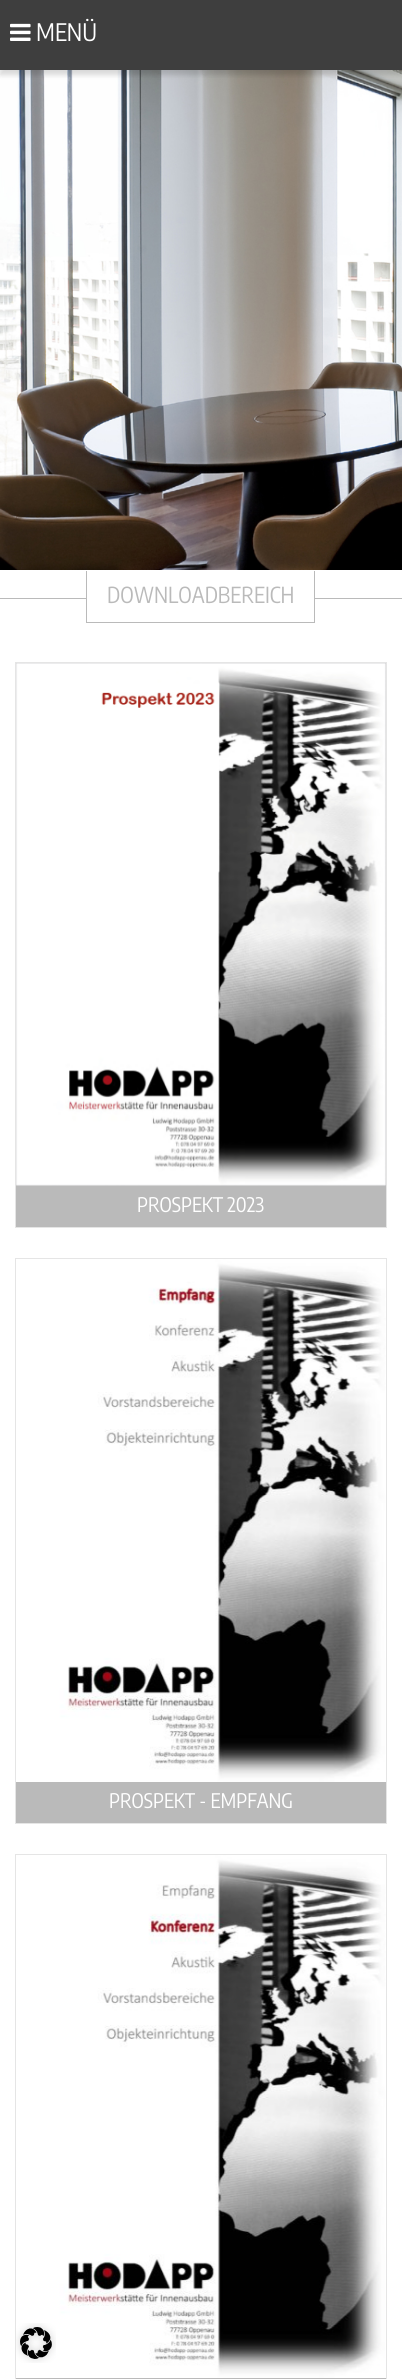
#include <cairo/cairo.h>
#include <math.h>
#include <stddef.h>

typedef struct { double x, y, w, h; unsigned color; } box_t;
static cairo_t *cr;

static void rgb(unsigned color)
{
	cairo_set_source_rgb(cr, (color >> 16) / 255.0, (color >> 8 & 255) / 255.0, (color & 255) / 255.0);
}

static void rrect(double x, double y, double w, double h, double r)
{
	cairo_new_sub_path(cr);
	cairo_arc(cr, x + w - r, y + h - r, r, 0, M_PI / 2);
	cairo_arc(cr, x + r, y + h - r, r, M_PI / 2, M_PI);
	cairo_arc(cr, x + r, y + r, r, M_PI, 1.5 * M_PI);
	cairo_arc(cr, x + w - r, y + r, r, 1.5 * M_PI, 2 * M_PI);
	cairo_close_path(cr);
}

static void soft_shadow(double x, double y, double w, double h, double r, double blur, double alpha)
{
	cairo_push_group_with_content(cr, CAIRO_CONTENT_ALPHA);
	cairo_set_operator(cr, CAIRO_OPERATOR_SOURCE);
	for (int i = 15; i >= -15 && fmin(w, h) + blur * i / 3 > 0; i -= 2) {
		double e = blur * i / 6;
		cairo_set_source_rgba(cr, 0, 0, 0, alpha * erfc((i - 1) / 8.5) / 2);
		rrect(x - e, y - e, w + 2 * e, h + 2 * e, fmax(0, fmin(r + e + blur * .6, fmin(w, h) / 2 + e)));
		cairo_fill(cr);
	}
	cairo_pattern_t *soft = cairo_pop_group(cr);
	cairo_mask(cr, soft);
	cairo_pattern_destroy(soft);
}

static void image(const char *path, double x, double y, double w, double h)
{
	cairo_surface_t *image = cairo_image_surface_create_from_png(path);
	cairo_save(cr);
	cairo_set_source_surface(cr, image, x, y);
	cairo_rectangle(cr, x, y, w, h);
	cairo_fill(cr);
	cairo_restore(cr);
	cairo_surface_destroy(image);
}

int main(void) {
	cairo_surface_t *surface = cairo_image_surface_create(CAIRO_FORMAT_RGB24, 402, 2379);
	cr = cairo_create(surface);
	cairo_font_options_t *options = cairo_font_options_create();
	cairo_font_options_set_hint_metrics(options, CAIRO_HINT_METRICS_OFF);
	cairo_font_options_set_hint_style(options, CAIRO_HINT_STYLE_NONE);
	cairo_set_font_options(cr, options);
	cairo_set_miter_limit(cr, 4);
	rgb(0xffffff);
	cairo_paint(cr);
	image("img/2.png", 0, 70, 402, 500);
	rgb(0x000000);
	soft_shadow(0, 5, 402, 70, 0, 2.5, 0.15);
	rgb(0x3e3e3e);
	cairo_rectangle(cr, 0, 0, 402, 70);
	cairo_fill(cr);
	image("img/1.png", 10, 23, 21, 18);
	{
		static const box_t items[] = {
			{0, 598, 402, 1, 0xbababa},
			{87, 598, 227, 1, 0xffffff},
			{314, 571, 1, 52, 0xbababa},
			{86, 622, 229, 1, 0xbababa},
			{86, 571, 1, 52, 0xbababa},
		};
		for (size_t i = 0; i < sizeof items / sizeof *items; i++) {
			rgb(items[i].color);
			cairo_rectangle(cr, items[i].x, items[i].y, items[i].w, items[i].h);
			cairo_fill(cr);
		}
	}
	cairo_rectangle(cr, 15.5, 662.5, 371, 565);
	rgb(0xe5e5e5);
	cairo_set_line_width(cr, 1);
	cairo_stroke(cr);
	rgb(0x808080);
	cairo_rectangle(cr, 16, 663, 370, 523);
	cairo_fill(cr);
	image("img/3.png", 16, 663, 370, 523);
	rgb(0xbababa);
	cairo_rectangle(cr, 16, 1186, 370, 41);
	cairo_fill(cr);
	cairo_rectangle(cr, 15.5, 1258.5, 371, 565);
	rgb(0xe5e5e5);
	cairo_stroke(cr);
	image("img/4.png", 16, 1259, 370, 523);
	rgb(0xbababa);
	cairo_rectangle(cr, 16, 1782, 370, 41);
	cairo_fill(cr);
	cairo_rectangle(cr, 15.5, 1854.5, 371, 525);
	rgb(0xe5e5e5);
	cairo_stroke(cr);
	image("img/5.png", 16, 1855, 370, 523);
	rgb(0xbababa);
	cairo_rectangle(cr, 16, 2378, 370, 1);
	cairo_fill(cr);
	image("img/6.png", 16, 2323, 40, 40);
	cairo_select_font_face(cr, "Encode Sans Condensed", CAIRO_FONT_SLANT_NORMAL, CAIRO_FONT_WEIGHT_NORMAL);
	cairo_set_font_size(cr, 24);
	rgb(0xffffff);
	cairo_move_to(cr, 36, 41);
	cairo_show_text(cr, "MENÜ");
	cairo_set_font_size(cr, 22);
	rgb(0xbababa);
	cairo_move_to(cr, 107, 603);
	cairo_show_text(cr, "DOWNLOADBEREICH");
	cairo_set_font_size(cr, 20);
	rgb(0xffffff);
	cairo_move_to(cr, 137, 1212);
	cairo_show_text(cr, "PROSPEKT 2023");
	cairo_move_to(cr, 109, 1808);
	cairo_show_text(cr, "PROSPEKT - EMPFANG");
	cairo_surface_write_to_png(surface, "page.png");
	cairo_font_options_destroy(options);
	cairo_destroy(cr);
	cairo_surface_destroy(surface);
	return 0;
}
